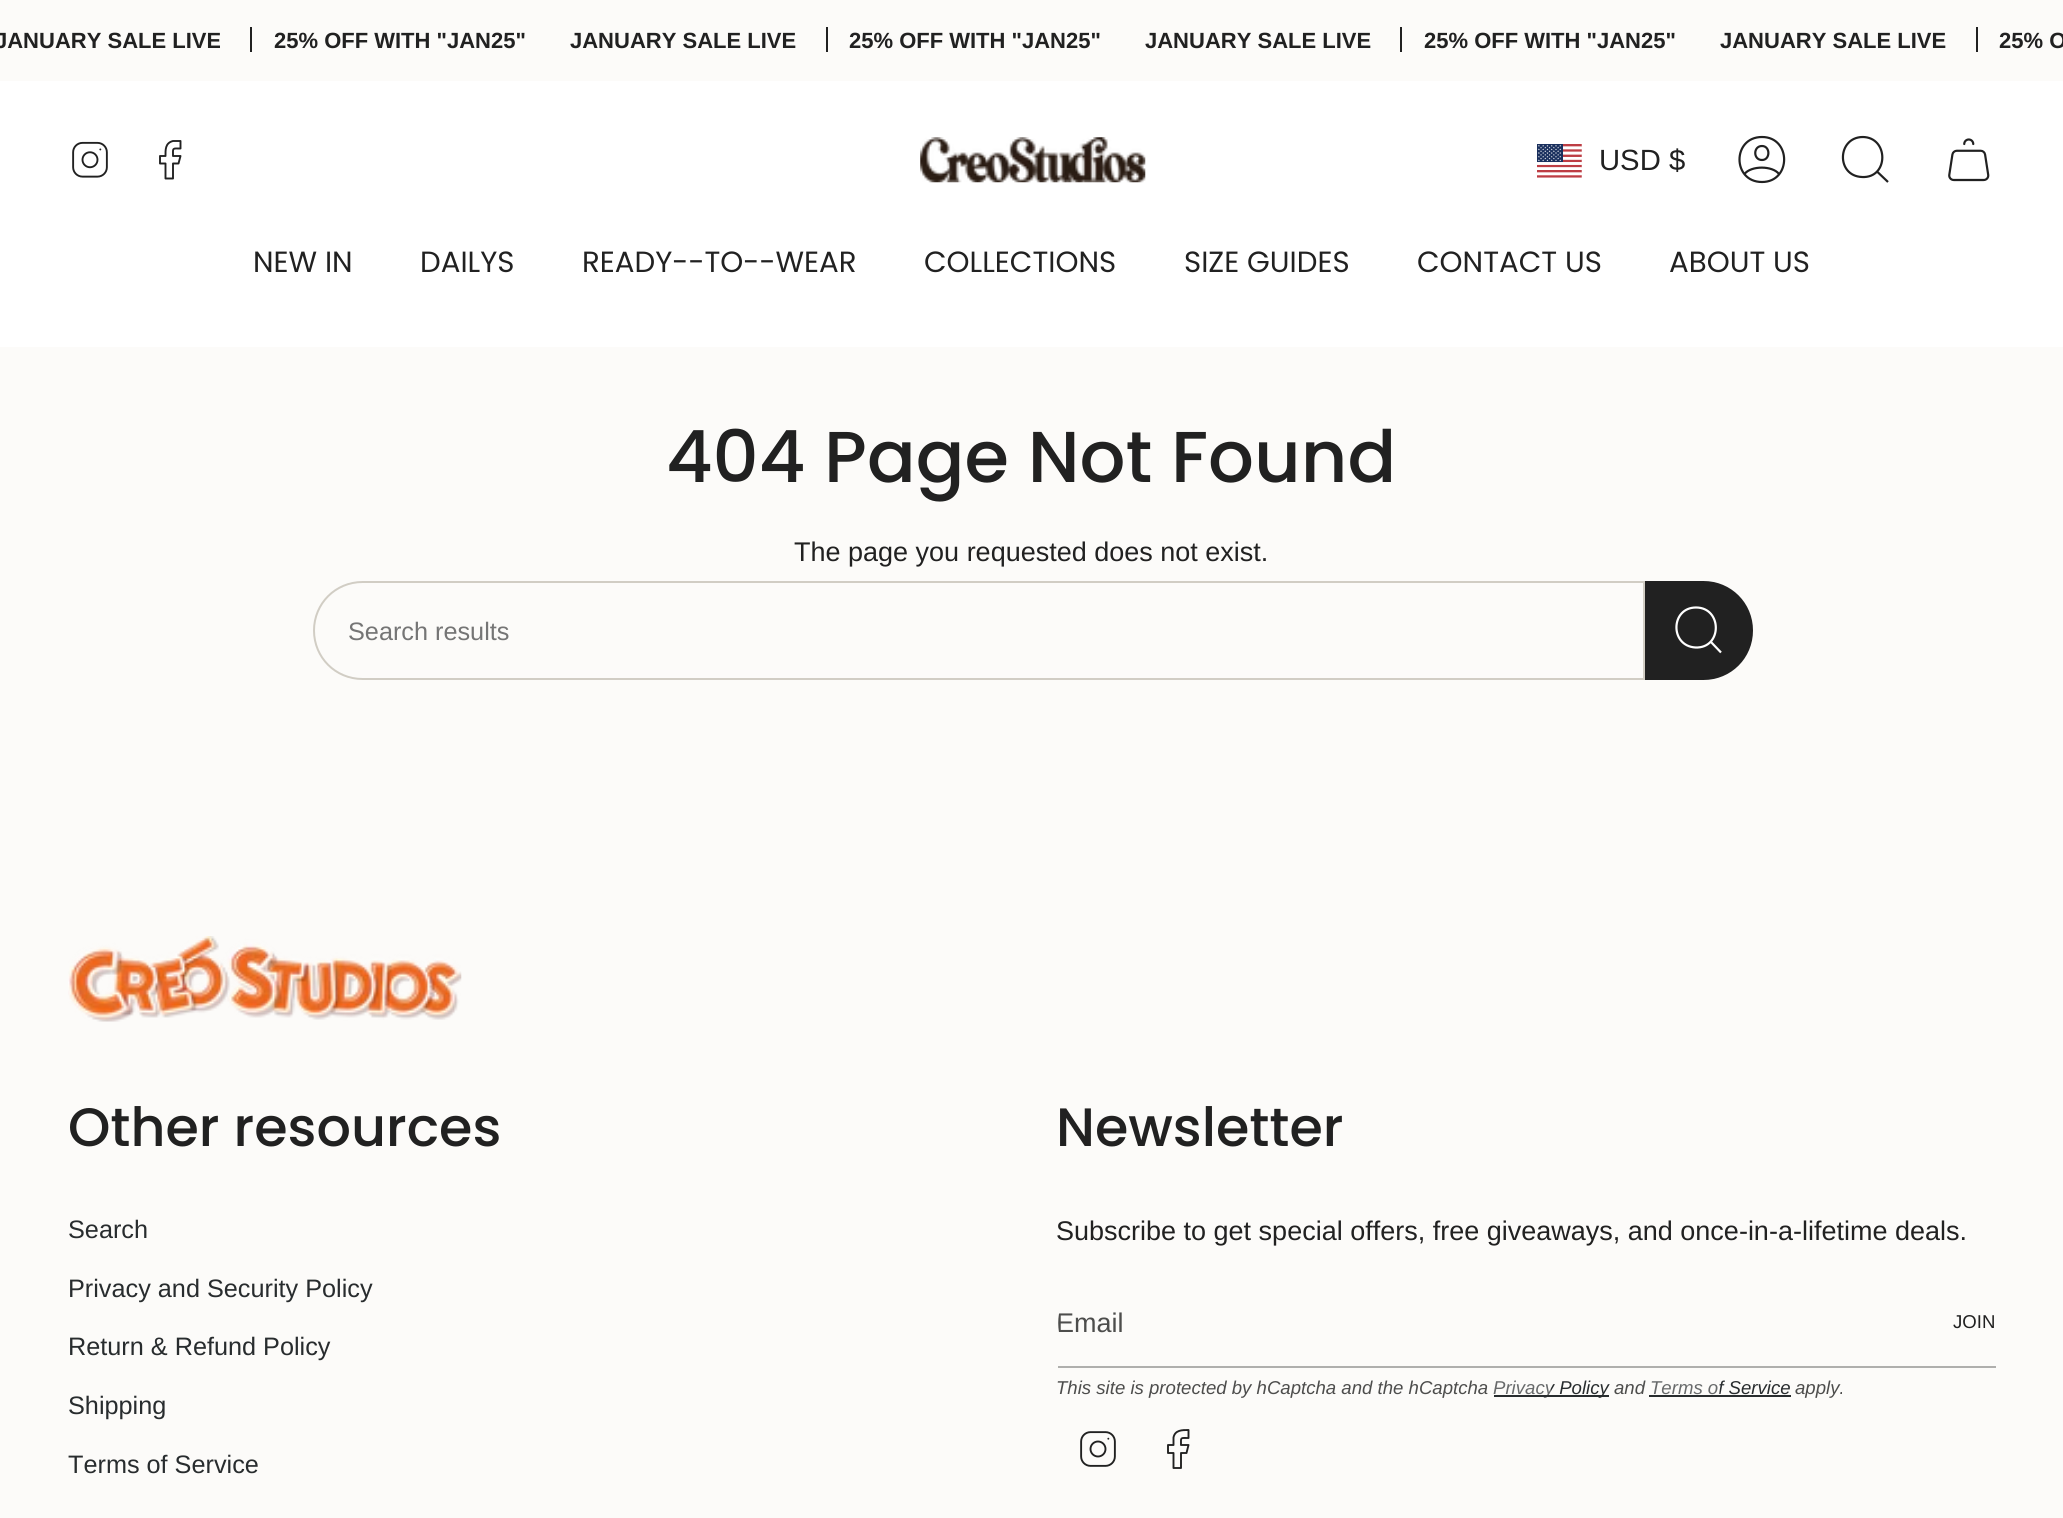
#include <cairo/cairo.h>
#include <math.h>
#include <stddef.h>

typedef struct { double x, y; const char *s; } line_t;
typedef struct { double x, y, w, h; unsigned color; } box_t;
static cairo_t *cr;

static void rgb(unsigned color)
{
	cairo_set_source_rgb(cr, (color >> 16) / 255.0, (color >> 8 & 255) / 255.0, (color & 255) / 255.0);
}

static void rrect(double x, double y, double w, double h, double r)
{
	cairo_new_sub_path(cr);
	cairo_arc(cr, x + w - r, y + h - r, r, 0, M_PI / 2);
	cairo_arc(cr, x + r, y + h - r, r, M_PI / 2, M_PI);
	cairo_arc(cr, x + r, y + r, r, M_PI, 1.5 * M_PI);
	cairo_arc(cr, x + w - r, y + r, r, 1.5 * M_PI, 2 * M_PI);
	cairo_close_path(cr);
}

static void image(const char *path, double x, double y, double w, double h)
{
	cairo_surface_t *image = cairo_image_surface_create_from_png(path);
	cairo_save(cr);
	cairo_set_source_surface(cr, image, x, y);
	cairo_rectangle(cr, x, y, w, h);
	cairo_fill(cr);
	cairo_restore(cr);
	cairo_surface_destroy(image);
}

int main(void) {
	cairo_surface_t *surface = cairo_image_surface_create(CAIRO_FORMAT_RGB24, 2063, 1518);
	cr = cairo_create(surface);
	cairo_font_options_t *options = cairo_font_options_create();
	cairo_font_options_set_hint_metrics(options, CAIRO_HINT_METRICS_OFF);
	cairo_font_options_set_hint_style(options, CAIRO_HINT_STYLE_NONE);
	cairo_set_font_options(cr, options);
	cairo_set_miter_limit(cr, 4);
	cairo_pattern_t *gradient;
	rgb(0xfcfbf9);
	cairo_paint(cr);
	{
		static const box_t items[] = {
			{250, 27, 2, 25, 0x212121},
			{826, 27, 2, 25, 0x212121},
			{1400, 27, 2, 25, 0x212121},
			{1976, 27, 2, 25, 0x212121},
			{0, 81, 2063, 266, 0xffffff},
		};
		for (size_t i = 0; i < sizeof items / sizeof *items; i++) {
			rgb(items[i].color);
			cairo_rectangle(cr, items[i].x, items[i].y, items[i].w, items[i].h);
			cairo_fill(cr);
		}
	}
	image("img/1.png", 72, 141, 36, 37);
	cairo_new_path(cr);
	cairo_move_to(cr, 180.5, 141);
	cairo_line_to(cr, 173, 141);
	cairo_curve_to(cr, 165, 143, 165.5, 150, 165.5, 156);
	cairo_line_to(cr, 160, 156);
	cairo_line_to(cr, 160, 163.5);
	cairo_line_to(cr, 165.5, 163.5);
	cairo_line_to(cr, 165.5, 178.5);
	cairo_line_to(cr, 173, 178.5);
	cairo_line_to(cr, 173, 163.5);
	cairo_line_to(cr, 178.5, 163.5);
	cairo_line_to(cr, 180.5, 156);
	cairo_line_to(cr, 173, 156);
	cairo_curve_to(cr, 173, 147.5, 172, 148.5, 180.5, 148.5);
	cairo_close_path(cr);
	rgb(0x212121);
	cairo_set_line_width(cr, 1.9);
	cairo_set_line_cap(cr, CAIRO_LINE_CAP_ROUND);
	cairo_set_line_join(cr, CAIRO_LINE_JOIN_ROUND);
	cairo_stroke(cr);
	image("img/2.png", 920, 137, 226, 46);
	image("img/3.png", 1537, 144, 45, 34);
	cairo_new_path(cr);
	cairo_move_to(cr, 1762, 137);
	cairo_curve_to(cr, 1732, 137, 1732, 182, 1762, 182);
	cairo_curve_to(cr, 1791.5, 182, 1791.5, 137, 1762, 137);
	cairo_close_path(cr);
	cairo_move_to(cr, 1744.5, 174);
	cairo_curve_to(cr, 1751, 165.5, 1772.5, 165.5, 1779, 174);
	cairo_move_to(cr, 1762, 160);
	cairo_curve_to(cr, 1770.5, 160, 1770.5, 146, 1762, 146);
	cairo_curve_to(cr, 1753, 146, 1753, 160, 1762, 160);
	cairo_close_path(cr);
	cairo_set_line_width(cr, 2.2);
	cairo_stroke(cr);
	cairo_new_path(cr);
	cairo_move_to(cr, 1862.5, 137);
	cairo_curve_to(cr, 1889, 137, 1889, 178.5, 1862, 177);
	cairo_curve_to(cr, 1836, 176, 1837, 137.5, 1862.5, 137);
	cairo_close_path(cr);
	cairo_move_to(cr, 1877, 171.5);
	cairo_line_to(cr, 1888, 182);
	cairo_set_line_cap(cr, CAIRO_LINE_CAP_BUTT);
	cairo_set_line_join(cr, CAIRO_LINE_JOIN_MITER);
	cairo_stroke(cr);
	image("img/4.png", 1948, 138, 42, 44);
	cairo_new_path(cr);
	cairo_move_to(cr, 362.5, 582);
	cairo_line_to(cr, 1644, 582);
	cairo_line_to(cr, 1644, 679);
	cairo_line_to(cr, 362.5, 679);
	cairo_curve_to(cr, 335.5, 679, 314, 657.5, 314, 630.5);
	cairo_curve_to(cr, 314, 603.5, 335.5, 582, 362.5, 582);
	cairo_close_path(cr);
	rgb(0xd1cdc4);
	cairo_set_line_width(cr, 2);
	cairo_stroke(cr);
	rgb(0x212121);
	cairo_new_path(cr);
	cairo_move_to(cr, 1646, 582);
	cairo_line_to(cr, 1703.5, 582);
	cairo_curve_to(cr, 1730.5, 582, 1752, 603.5, 1752, 630.5);
	cairo_curve_to(cr, 1752, 657.5, 1730.5, 679, 1703.5, 679);
	cairo_line_to(cr, 1646, 679);
	cairo_close_path(cr);
	cairo_fill_preserve(cr);
	cairo_stroke(cr);
	cairo_new_path(cr);
	cairo_move_to(cr, 1696, 607.5);
	cairo_curve_to(cr, 1722.5, 607.5, 1722.5, 648.5, 1695.5, 647.5);
	cairo_curve_to(cr, 1669.5, 646, 1670.5, 607.5, 1696, 607.5);
	cairo_close_path(cr);
	cairo_move_to(cr, 1710.5, 641.5);
	cairo_line_to(cr, 1721, 652.5);
	rgb(0xffffff);
	cairo_set_line_width(cr, 2.2);
	cairo_stroke(cr);
	image("img/5.png", 68, 936, 394, 86);
	rgb(0xafafad);
	cairo_rectangle(cr, 1058, 1366, 938, 2);
	cairo_fill(cr);
	rgb(0x282c2e);
	cairo_rectangle(cr, 1649, 1395, 142, 2);
	cairo_fill(cr);
	image("img/6.png", 1080, 1431, 36, 36);
	cairo_new_path(cr);
	cairo_move_to(cr, 1188.5, 1430);
	cairo_curve_to(cr, 1182, 1430, 1175, 1430, 1173.5, 1437.5);
	cairo_line_to(cr, 1173.5, 1445);
	cairo_line_to(cr, 1168, 1445);
	cairo_line_to(cr, 1168, 1453);
	cairo_line_to(cr, 1173.5, 1453);
	cairo_line_to(cr, 1173.5, 1468);
	cairo_line_to(cr, 1181, 1468);
	cairo_line_to(cr, 1181, 1453);
	cairo_line_to(cr, 1186.5, 1453);
	cairo_line_to(cr, 1188.5, 1445);
	cairo_line_to(cr, 1181, 1445);
	cairo_curve_to(cr, 1181, 1437, 1180, 1438, 1188.5, 1438);
	cairo_close_path(cr);
	rgb(0x212121);
	cairo_set_line_width(cr, 1.9);
	cairo_set_line_cap(cr, CAIRO_LINE_CAP_ROUND);
	cairo_set_line_join(cr, CAIRO_LINE_JOIN_ROUND);
	cairo_stroke(cr);
	cairo_select_font_face(cr, "Liberation Sans", CAIRO_FONT_SLANT_NORMAL, CAIRO_FONT_WEIGHT_BOLD);
	cairo_set_font_size(cr, 22);
	{
		static const line_t items[] = {
			{-5, 48, "JANUARY SALE LIVE"},
			{274, 48, "25% OFF WITH \"JAN25\""},
			{570, 48, "JANUARY SALE LIVE"},
			{849, 48, "25% OFF WITH \"JAN25\""},
			{1145, 48, "JANUARY SALE LIVE"},
			{1424, 48, "25% OFF WITH \"JAN25\""},
			{1720, 48, "JANUARY SALE LIVE"},
			{1999, 48, "25% O"},
		};
		for (size_t i = 0; i < sizeof items / sizeof *items; i++) {
			cairo_move_to(cr, items[i].x, items[i].y);
			cairo_show_text(cr, items[i].s);
		}
	}
	cairo_select_font_face(cr, "Liberation Sans", CAIRO_FONT_SLANT_NORMAL, CAIRO_FONT_WEIGHT_NORMAL);
	cairo_set_font_size(cr, 29.25);
	cairo_move_to(cr, 1599, 170);
	cairo_show_text(cr, "USD $");
	cairo_select_font_face(cr, "Poppins", CAIRO_FONT_SLANT_NORMAL, CAIRO_FONT_WEIGHT_NORMAL);
	{
		static const line_t items[] = {
			{253, 272, "NEW IN"},
			{420, 272, "DAILYS"},
			{582, 272, "READY--TO--WEAR"},
			{924, 272, "COLLECTIONS"},
			{1184, 272, "SIZE GUIDES"},
			{1417, 272, "CONTACT US"},
			{1669, 272, "ABOUT US"},
		};
		for (size_t i = 0; i < sizeof items / sizeof *items; i++) {
			cairo_move_to(cr, items[i].x, items[i].y);
			cairo_show_text(cr, items[i].s);
		}
	}
	cairo_select_font_face(cr, "Poppins Medium", CAIRO_FONT_SLANT_NORMAL, CAIRO_FONT_WEIGHT_NORMAL);
	cairo_set_font_size(cr, 72);
	cairo_move_to(cr, 666, 482);
	cairo_show_text(cr, "404 Page Not Found");
	cairo_select_font_face(cr, "Liberation Sans", CAIRO_FONT_SLANT_NORMAL, CAIRO_FONT_WEIGHT_NORMAL);
	cairo_set_font_size(cr, 27);
	cairo_move_to(cr, 794, 561);
	cairo_show_text(cr, "The page you requested does not exist.");
	cairo_set_font_size(cr, 25.25);
	rgb(0x757575);
	cairo_move_to(cr, 348, 640);
	cairo_show_text(cr, "Search results");
	cairo_select_font_face(cr, "Poppins Medium", CAIRO_FONT_SLANT_NORMAL, CAIRO_FONT_WEIGHT_NORMAL);
	cairo_set_font_size(cr, 54);
	rgb(0x212121);
	cairo_move_to(cr, 68, 1146);
	cairo_show_text(cr, "Other resources");
	cairo_select_font_face(cr, "Liberation Sans", CAIRO_FONT_SLANT_NORMAL, CAIRO_FONT_WEIGHT_NORMAL);
	cairo_set_font_size(cr, 25.25);
	rgb(0x282c2e);
	{
		static const line_t items[] = {
			{68, 1238, "Search"},
			{68, 1297, "Privacy and Security Policy"},
			{68, 1355, "Return & Refund Policy"},
			{68, 1414, "Shipping"},
			{68, 1473, "Terms of Service"},
		};
		for (size_t i = 0; i < sizeof items / sizeof *items; i++) {
			cairo_move_to(cr, items[i].x, items[i].y);
			cairo_show_text(cr, items[i].s);
		}
	}
	cairo_select_font_face(cr, "Poppins Medium", CAIRO_FONT_SLANT_NORMAL, CAIRO_FONT_WEIGHT_NORMAL);
	cairo_set_font_size(cr, 54);
	rgb(0x212121);
	cairo_move_to(cr, 1056, 1146);
	cairo_show_text(cr, "Newsletter");
	cairo_select_font_face(cr, "Liberation Sans", CAIRO_FONT_SLANT_NORMAL, CAIRO_FONT_WEIGHT_NORMAL);
	cairo_set_font_size(cr, 27);
	cairo_move_to(cr, 1056, 1240);
	cairo_show_text(cr, "Subscribe to get special offers, free giveaways, and once-in-a-lifetime deals.");
	cairo_save(cr);
	rrect(1058, 1280, 868, 86, 43);
	cairo_clip(cr);
	rgb(0x4d4d4c);
	cairo_move_to(cr, 1056, 1332);
	cairo_show_text(cr, "Email");
	cairo_restore(cr);
	cairo_set_font_size(cr, 18.6);
	cairo_move_to(cr, 1953, 1328);
	cairo_show_text(cr, "JOIN");
	cairo_select_font_face(cr, "Liberation Sans", CAIRO_FONT_SLANT_ITALIC, CAIRO_FONT_WEIGHT_NORMAL);
	rgb(0x4d4d4c);
	cairo_move_to(cr, 1056, 1394);
	cairo_show_text(cr, "This site is protected by hCaptcha and the hCaptcha");
	gradient = cairo_pattern_create_linear(1493, 1388, 1608, 1388);
	cairo_pattern_add_color_stop_rgba(gradient, 0, 0.408, 0.416, 0.42, 1);
	cairo_pattern_add_color_stop_rgba(gradient, 0.5, 0.408, 0.416, 0.42, 1);
	cairo_pattern_add_color_stop_rgba(gradient, 0.5, 0.157, 0.173, 0.18, 1);
	cairo_pattern_add_color_stop_rgba(gradient, 1, 0.157, 0.173, 0.18, 1);
	cairo_set_source(cr, gradient);
	cairo_pattern_destroy(gradient);
	cairo_move_to(cr, 1493, 1394);
	cairo_show_text(cr, "Privacy Policy");
	rgb(0x282c2e);
	cairo_rectangle(cr, 1494, 1395, 115, 2);
	cairo_fill(cr);
	rgb(0x4d4d4c);
	cairo_move_to(cr, 1614, 1394);
	cairo_show_text(cr, "and");
	gradient = cairo_pattern_create_linear(1650, 1388, 1790, 1388);
	cairo_pattern_add_color_stop_rgba(gradient, 0, 0.408, 0.416, 0.42, 1);
	cairo_pattern_add_color_stop_rgba(gradient, 0.5, 0.408, 0.416, 0.42, 1);
	cairo_pattern_add_color_stop_rgba(gradient, 0.5, 0.157, 0.173, 0.18, 1);
	cairo_pattern_add_color_stop_rgba(gradient, 1, 0.157, 0.173, 0.18, 1);
	cairo_set_source(cr, gradient);
	cairo_pattern_destroy(gradient);
	cairo_move_to(cr, 1650, 1394);
	cairo_show_text(cr, "Terms of Service");
	rgb(0x4d4d4c);
	cairo_move_to(cr, 1795, 1394);
	cairo_show_text(cr, "apply.");
	cairo_surface_write_to_png(surface, "page.png");
	cairo_font_options_destroy(options);
	cairo_destroy(cr);
	cairo_surface_destroy(surface);
	return 0;
}
